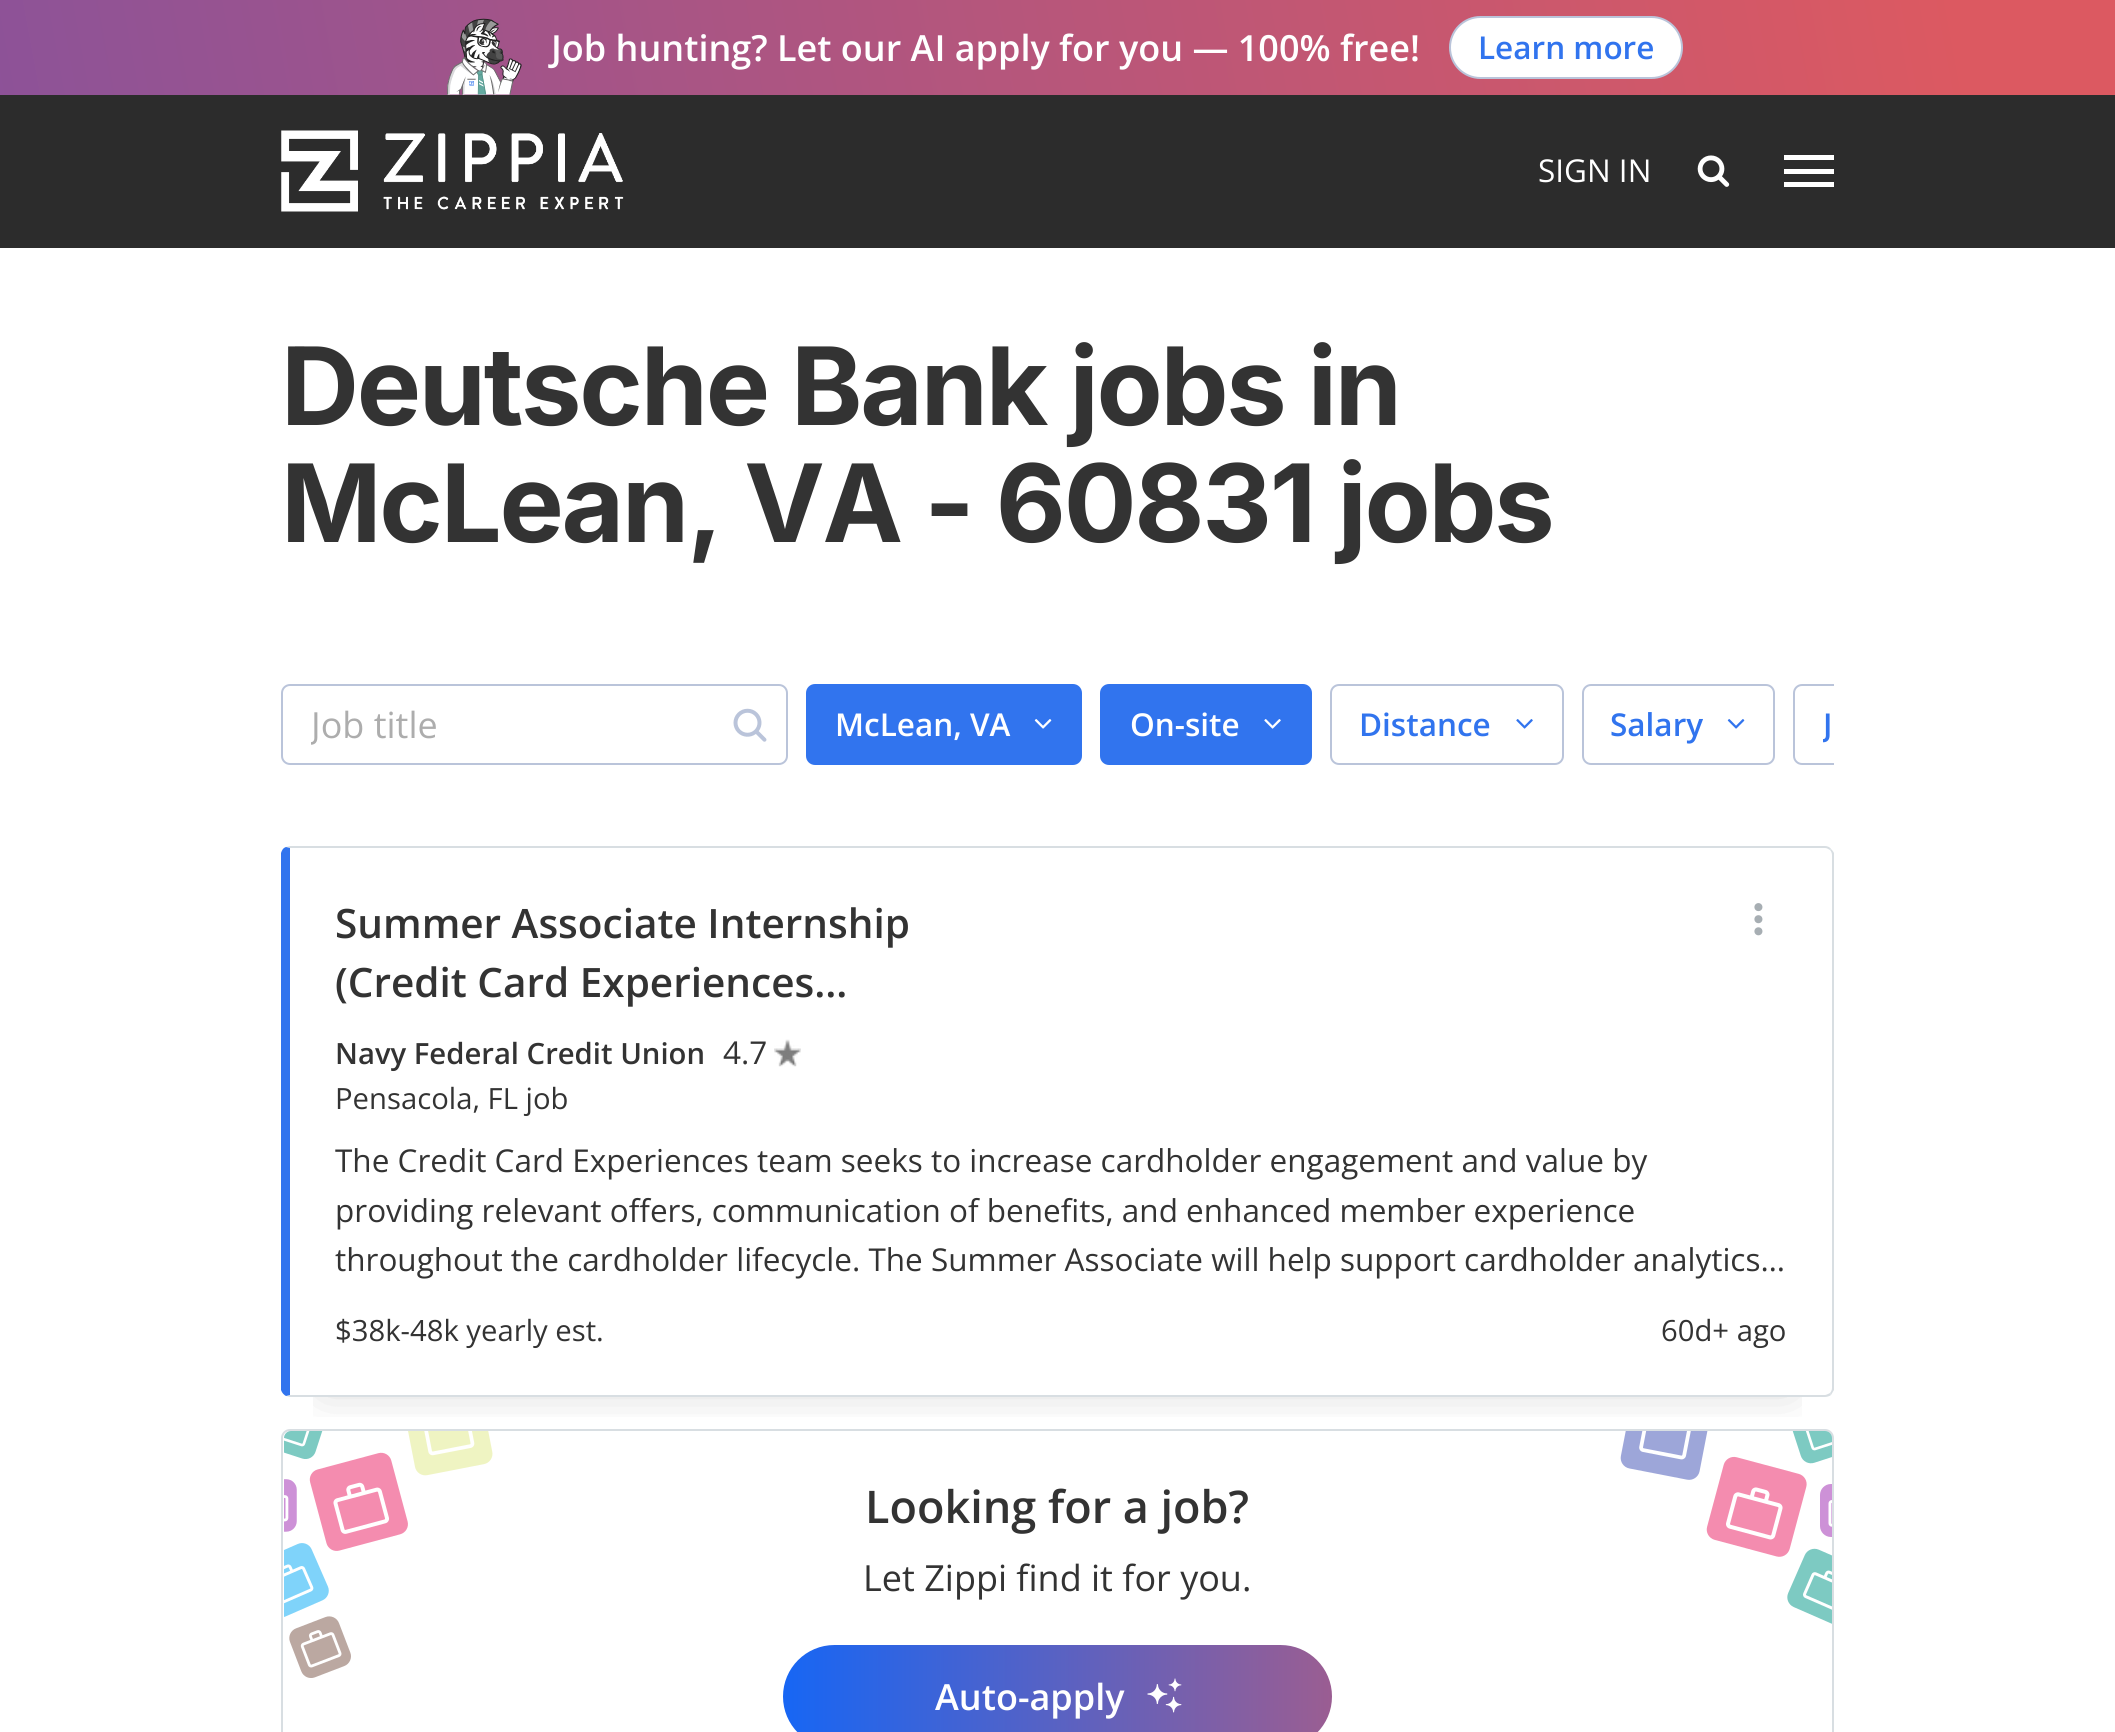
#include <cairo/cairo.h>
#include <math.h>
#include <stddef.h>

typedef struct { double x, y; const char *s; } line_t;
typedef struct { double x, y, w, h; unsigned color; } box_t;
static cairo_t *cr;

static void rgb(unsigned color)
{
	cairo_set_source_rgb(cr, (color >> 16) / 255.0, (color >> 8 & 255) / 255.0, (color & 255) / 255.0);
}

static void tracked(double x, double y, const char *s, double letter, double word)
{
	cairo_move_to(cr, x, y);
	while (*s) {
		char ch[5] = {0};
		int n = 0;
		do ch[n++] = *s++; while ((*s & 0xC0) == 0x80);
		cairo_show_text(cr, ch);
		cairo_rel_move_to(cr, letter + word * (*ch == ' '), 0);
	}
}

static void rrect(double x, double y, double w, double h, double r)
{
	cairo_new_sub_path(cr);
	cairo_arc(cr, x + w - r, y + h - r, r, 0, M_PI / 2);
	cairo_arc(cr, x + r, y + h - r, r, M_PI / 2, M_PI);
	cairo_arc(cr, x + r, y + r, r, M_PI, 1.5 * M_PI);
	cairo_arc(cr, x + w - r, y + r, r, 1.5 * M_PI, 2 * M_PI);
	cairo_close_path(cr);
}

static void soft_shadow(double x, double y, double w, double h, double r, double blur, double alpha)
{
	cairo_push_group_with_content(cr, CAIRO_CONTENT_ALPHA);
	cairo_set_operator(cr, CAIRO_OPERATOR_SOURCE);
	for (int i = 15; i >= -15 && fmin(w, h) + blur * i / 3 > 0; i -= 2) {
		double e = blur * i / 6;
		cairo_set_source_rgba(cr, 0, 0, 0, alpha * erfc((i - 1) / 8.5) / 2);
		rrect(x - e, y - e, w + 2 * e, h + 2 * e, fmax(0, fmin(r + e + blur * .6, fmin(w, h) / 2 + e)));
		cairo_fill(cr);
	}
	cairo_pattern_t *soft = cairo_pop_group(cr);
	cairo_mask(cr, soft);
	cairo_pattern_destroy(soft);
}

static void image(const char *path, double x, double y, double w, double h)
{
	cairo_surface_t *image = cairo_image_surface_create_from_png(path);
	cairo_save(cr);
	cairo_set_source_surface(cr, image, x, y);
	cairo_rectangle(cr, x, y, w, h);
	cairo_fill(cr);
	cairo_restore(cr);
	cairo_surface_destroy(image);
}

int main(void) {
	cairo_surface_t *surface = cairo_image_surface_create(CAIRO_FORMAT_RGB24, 2115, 1732);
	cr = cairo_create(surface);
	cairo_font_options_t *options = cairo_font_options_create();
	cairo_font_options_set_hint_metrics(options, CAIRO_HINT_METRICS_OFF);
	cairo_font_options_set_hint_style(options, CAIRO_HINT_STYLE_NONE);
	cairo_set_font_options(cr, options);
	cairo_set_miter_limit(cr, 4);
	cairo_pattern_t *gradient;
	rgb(0xffffff);
	cairo_paint(cr);
	gradient = cairo_pattern_create_linear(-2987, 789, 2089, -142);
	cairo_pattern_add_color_stop_rgba(gradient, 0, 0.063, 0.282, 0.933, 1);
	cairo_pattern_add_color_stop_rgba(gradient, 0.97, 0.863, 0.349, 0.38, 1);
	cairo_set_source(cr, gradient);
	cairo_pattern_destroy(gradient);
	cairo_rectangle(cr, 0, 0, 2115, 95);
	cairo_fill(cr);
	image("img/1.png", 447, 18, 75, 77);
	rgb(0xffffff);
	rrect(1450, 17, 232, 61, 30.5);
	cairo_fill_preserve(cr);
	rgb(0xbac4da);
	cairo_stroke(cr);
	rgb(0x2c2c2c);
	cairo_rectangle(cr, 0, 95, 2115, 153);
	cairo_fill(cr);
	image("img/2.png", 281, 130, 343, 82);
	image("img/3.png", 1697, 155, 33, 32);
	{
		static const box_t items[] = {
			{1784, 155, 50, 5, 0xffffff},
			{1784, 169, 50, 5, 0xffffff},
			{1784, 182, 50, 5, 0xffffff},
		};
		for (size_t i = 0; i < sizeof items / sizeof *items; i++) {
			rgb(items[i].color);
			cairo_rectangle(cr, items[i].x, items[i].y, items[i].w, items[i].h);
			cairo_fill(cr);
		}
	}
	image("img/4.png", 733, 708, 34, 34);
	rrect(282, 685, 505, 79, 8);
	rgb(0xbac4da);
	cairo_stroke(cr);
	rgb(0x3174ee);
	rrect(807, 685, 274, 79, 8);
	cairo_fill_preserve(cr);
	cairo_stroke(cr);
	image("img/5.png", 1034, 719, 18, 10);
	rrect(1101, 685, 210, 79, 8);
	cairo_fill_preserve(cr);
	cairo_stroke(cr);
	image("img/6.png", 1264, 719, 17, 10);
	rrect(1331, 685, 232, 79, 8);
	rgb(0xbac4da);
	cairo_stroke(cr);
	image("img/7.png", 1516, 719, 17, 10);
	rrect(1583, 685, 191, 79, 8);
	cairo_stroke(cr);
	image("img/8.png", 1727, 719, 18, 10);
	cairo_save(cr);
	cairo_rectangle(cr, 281, 684, 1553, 81);
	cairo_clip(cr);
	rrect(1794, 685, 223, 79, 8);
	cairo_stroke(cr);
	cairo_restore(cr);
	cairo_save(cr);
	cairo_rectangle(cr, 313, 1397, 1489, 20);
	cairo_clip(cr);
	rgb(0x000000);
	soft_shadow(324, 923, 1467, 465, 0, 22.5, 0.2);
	cairo_restore(cr);
	rgb(0xd8dee2);
	cairo_new_path(cr);
	cairo_move_to(cr, 290, 846);
	cairo_line_to(cr, 286, 847);
	cairo_line_to(cr, 290, 848);
	cairo_line_to(cr, 1825, 848);
	cairo_curve_to(cr, 1827, 848, 1828, 849, 1830, 850);
	cairo_line_to(cr, 1831, 849);
	cairo_curve_to(cr, 1830, 847, 1827, 846, 1825, 846);
	cairo_close_path(cr);
	cairo_fill(cr);
	cairo_new_path(cr);
	cairo_move_to(cr, 1834, 1390);
	cairo_curve_to(cr, 1833, 1392, 1832, 1393, 1831, 1395);
	cairo_line_to(cr, 1830, 1393);
	cairo_curve_to(cr, 1831, 1392, 1832, 1390, 1832, 1388);
	cairo_line_to(cr, 1832, 855);
	cairo_curve_to(cr, 1832, 853, 1831, 851, 1830, 850);
	cairo_line_to(cr, 1831, 849);
	cairo_curve_to(cr, 1832, 850, 1833, 851, 1834, 853);
	cairo_close_path(cr);
	cairo_fill(cr);
	cairo_new_path(cr);
	cairo_move_to(cr, 1831, 1395);
	cairo_curve_to(cr, 1830, 1396, 1827, 1397, 1825, 1397);
	cairo_line_to(cr, 290, 1397);
	cairo_line_to(cr, 286, 1396);
	cairo_line_to(cr, 290, 1395);
	cairo_line_to(cr, 1825, 1395);
	cairo_curve_to(cr, 1826, 1395, 1828, 1394, 1830, 1393);
	cairo_close_path(cr);
	cairo_fill(cr);
	rgb(0x3174ee);
	cairo_new_path(cr);
	cairo_move_to(cr, 281, 853);
	cairo_curve_to(cr, 282, 850, 283, 848, 286, 847);
	cairo_line_to(cr, 290, 848);
	cairo_line_to(cr, 290, 1395);
	cairo_line_to(cr, 286, 1396);
	cairo_curve_to(cr, 284, 1395, 282, 1393, 281, 1390);
	cairo_close_path(cr);
	cairo_fill(cr);
	image("img/9.png", 774, 1039, 27, 28);
	image("img/10.png", 1754, 903, 9, 33);
	rrect(282, 1430, 1551, 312, 8);
	rgb(0xd8dee2);
	cairo_stroke(cr);
	image("img/11.png", 284, 1431, 209, 247);
	image("img/12.png", 1620, 1431, 212, 193);
	gradient = cairo_pattern_create_linear(783, 1697, 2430, 1697);
	cairo_pattern_add_color_stop_rgba(gradient, 0, 0.09, 0.4, 0.957, 1);
	cairo_pattern_add_color_stop_rgba(gradient, 0.5, 0.863, 0.349, 0.38, 1);
	cairo_pattern_add_color_stop_rgba(gradient, 1, 0.09, 0.4, 0.957, 1);
	cairo_set_source(cr, gradient);
	cairo_pattern_destroy(gradient);
	rrect(783, 1645, 549, 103, 51.5);
	cairo_fill(cr);
	image("img/13.png", 1147, 1678, 35, 35);
	cairo_select_font_face(cr, "Open Sans SemiBold", CAIRO_FONT_SLANT_NORMAL, CAIRO_FONT_WEIGHT_NORMAL);
	cairo_set_font_size(cr, 36);
	rgb(0xffffff);
	cairo_move_to(cr, 551, 61);
	cairo_show_text(cr, "Job hunting? Let our AI apply for you — 100% free!");
	cairo_set_font_size(cr, 31.5);
	rgb(0x3174ee);
	cairo_move_to(cr, 1478, 59);
	cairo_show_text(cr, "Learn more");
	cairo_select_font_face(cr, "Open Sans", CAIRO_FONT_SLANT_NORMAL, CAIRO_FONT_WEIGHT_NORMAL);
	rgb(0xffffff);
	cairo_move_to(cr, 1538, 182);
	cairo_show_text(cr, "SIGN IN");
	cairo_select_font_face(cr, "Inter", CAIRO_FONT_SLANT_NORMAL, CAIRO_FONT_WEIGHT_BOLD);
	cairo_set_font_size(cr, 108);
	rgb(0x333333);
	tracked(281, 425, "Deutsche Bank jobs in", -2.25, 0);
	tracked(281, 542, "McLean, VA - 60831 jobs", -2.25, 0);
	cairo_save(cr);
	cairo_rectangle(cr, 311, 700, 402, 49);
	cairo_clip(cr);
	cairo_select_font_face(cr, "Open Sans", CAIRO_FONT_SLANT_NORMAL, CAIRO_FONT_WEIGHT_NORMAL);
	cairo_set_font_size(cr, 36);
	rgb(0xadadad);
	cairo_move_to(cr, 311, 738);
	cairo_show_text(cr, "Job title");
	cairo_restore(cr);
	cairo_select_font_face(cr, "Open Sans SemiBold", CAIRO_FONT_SLANT_NORMAL, CAIRO_FONT_WEIGHT_NORMAL);
	cairo_set_font_size(cr, 31.5);
	rgb(0xffffff);
	cairo_move_to(cr, 835, 736);
	cairo_show_text(cr, "McLean, VA");
	cairo_move_to(cr, 1130, 736);
	cairo_show_text(cr, "On-site");
	rgb(0x3174ee);
	cairo_move_to(cr, 1359, 736);
	cairo_show_text(cr, "Distance");
	cairo_move_to(cr, 1610, 736);
	cairo_show_text(cr, "Salary");
	cairo_save(cr);
	cairo_rectangle(cr, 1823, 704, 11, 41);
	cairo_clip(cr);
	cairo_move_to(cr, 1823, 736);
	cairo_show_text(cr, "J");
	cairo_restore(cr);
	cairo_set_font_size(cr, 40.5);
	rgb(0x333333);
	cairo_move_to(cr, 335, 938);
	cairo_show_text(cr, "Summer Associate Internship");
	cairo_move_to(cr, 335, 997);
	cairo_show_text(cr, "(Credit Card Experiences…");
	cairo_set_font_size(cr, 29.25);
	cairo_move_to(cr, 335, 1064);
	cairo_show_text(cr, "Navy Federal Credit Union");
	cairo_select_font_face(cr, "Open Sans", CAIRO_FONT_SLANT_NORMAL, CAIRO_FONT_WEIGHT_NORMAL);
	cairo_set_font_size(cr, 31.5);
	cairo_move_to(cr, 723, 1064);
	cairo_show_text(cr, "4.7");
	cairo_set_font_size(cr, 29.25);
	cairo_move_to(cr, 335, 1109);
	cairo_show_text(cr, "Pensacola, FL job");
	cairo_set_font_size(cr, 31.5);
	{
		static const line_t items[] = {
			{335, 1172, "The Credit Card Experiences team seeks to increase cardholder engagement and value by"},
			{335, 1222, "providing relevant offers, communication of benefits, and enhanced member experience"},
			{335, 1271, "throughout the cardholder lifecycle. The Summer Associate will help support cardholder analytics…"},
		};
		for (size_t i = 0; i < sizeof items / sizeof *items; i++) {
			cairo_move_to(cr, items[i].x, items[i].y);
			cairo_show_text(cr, items[i].s);
		}
	}
	cairo_set_font_size(cr, 29.25);
	cairo_move_to(cr, 335, 1341);
	cairo_show_text(cr, "$38k-48k yearly est.");
	cairo_move_to(cr, 1661, 1341);
	cairo_show_text(cr, "60d+ ago");
	cairo_select_font_face(cr, "Open Sans SemiBold", CAIRO_FONT_SLANT_NORMAL, CAIRO_FONT_WEIGHT_NORMAL);
	cairo_set_font_size(cr, 45);
	cairo_move_to(cr, 865, 1523);
	cairo_show_text(cr, "Looking for a job?");
	cairo_select_font_face(cr, "Open Sans", CAIRO_FONT_SLANT_NORMAL, CAIRO_FONT_WEIGHT_NORMAL);
	cairo_set_font_size(cr, 36);
	cairo_move_to(cr, 863, 1591);
	cairo_show_text(cr, "Let Zippi find it for you.");
	cairo_select_font_face(cr, "Open Sans SemiBold", CAIRO_FONT_SLANT_NORMAL, CAIRO_FONT_WEIGHT_NORMAL);
	rgb(0xffffff);
	cairo_move_to(cr, 935, 1710);
	cairo_show_text(cr, "Auto-apply");
	cairo_surface_write_to_png(surface, "page.png");
	cairo_font_options_destroy(options);
	cairo_destroy(cr);
	cairo_surface_destroy(surface);
	return 0;
}
